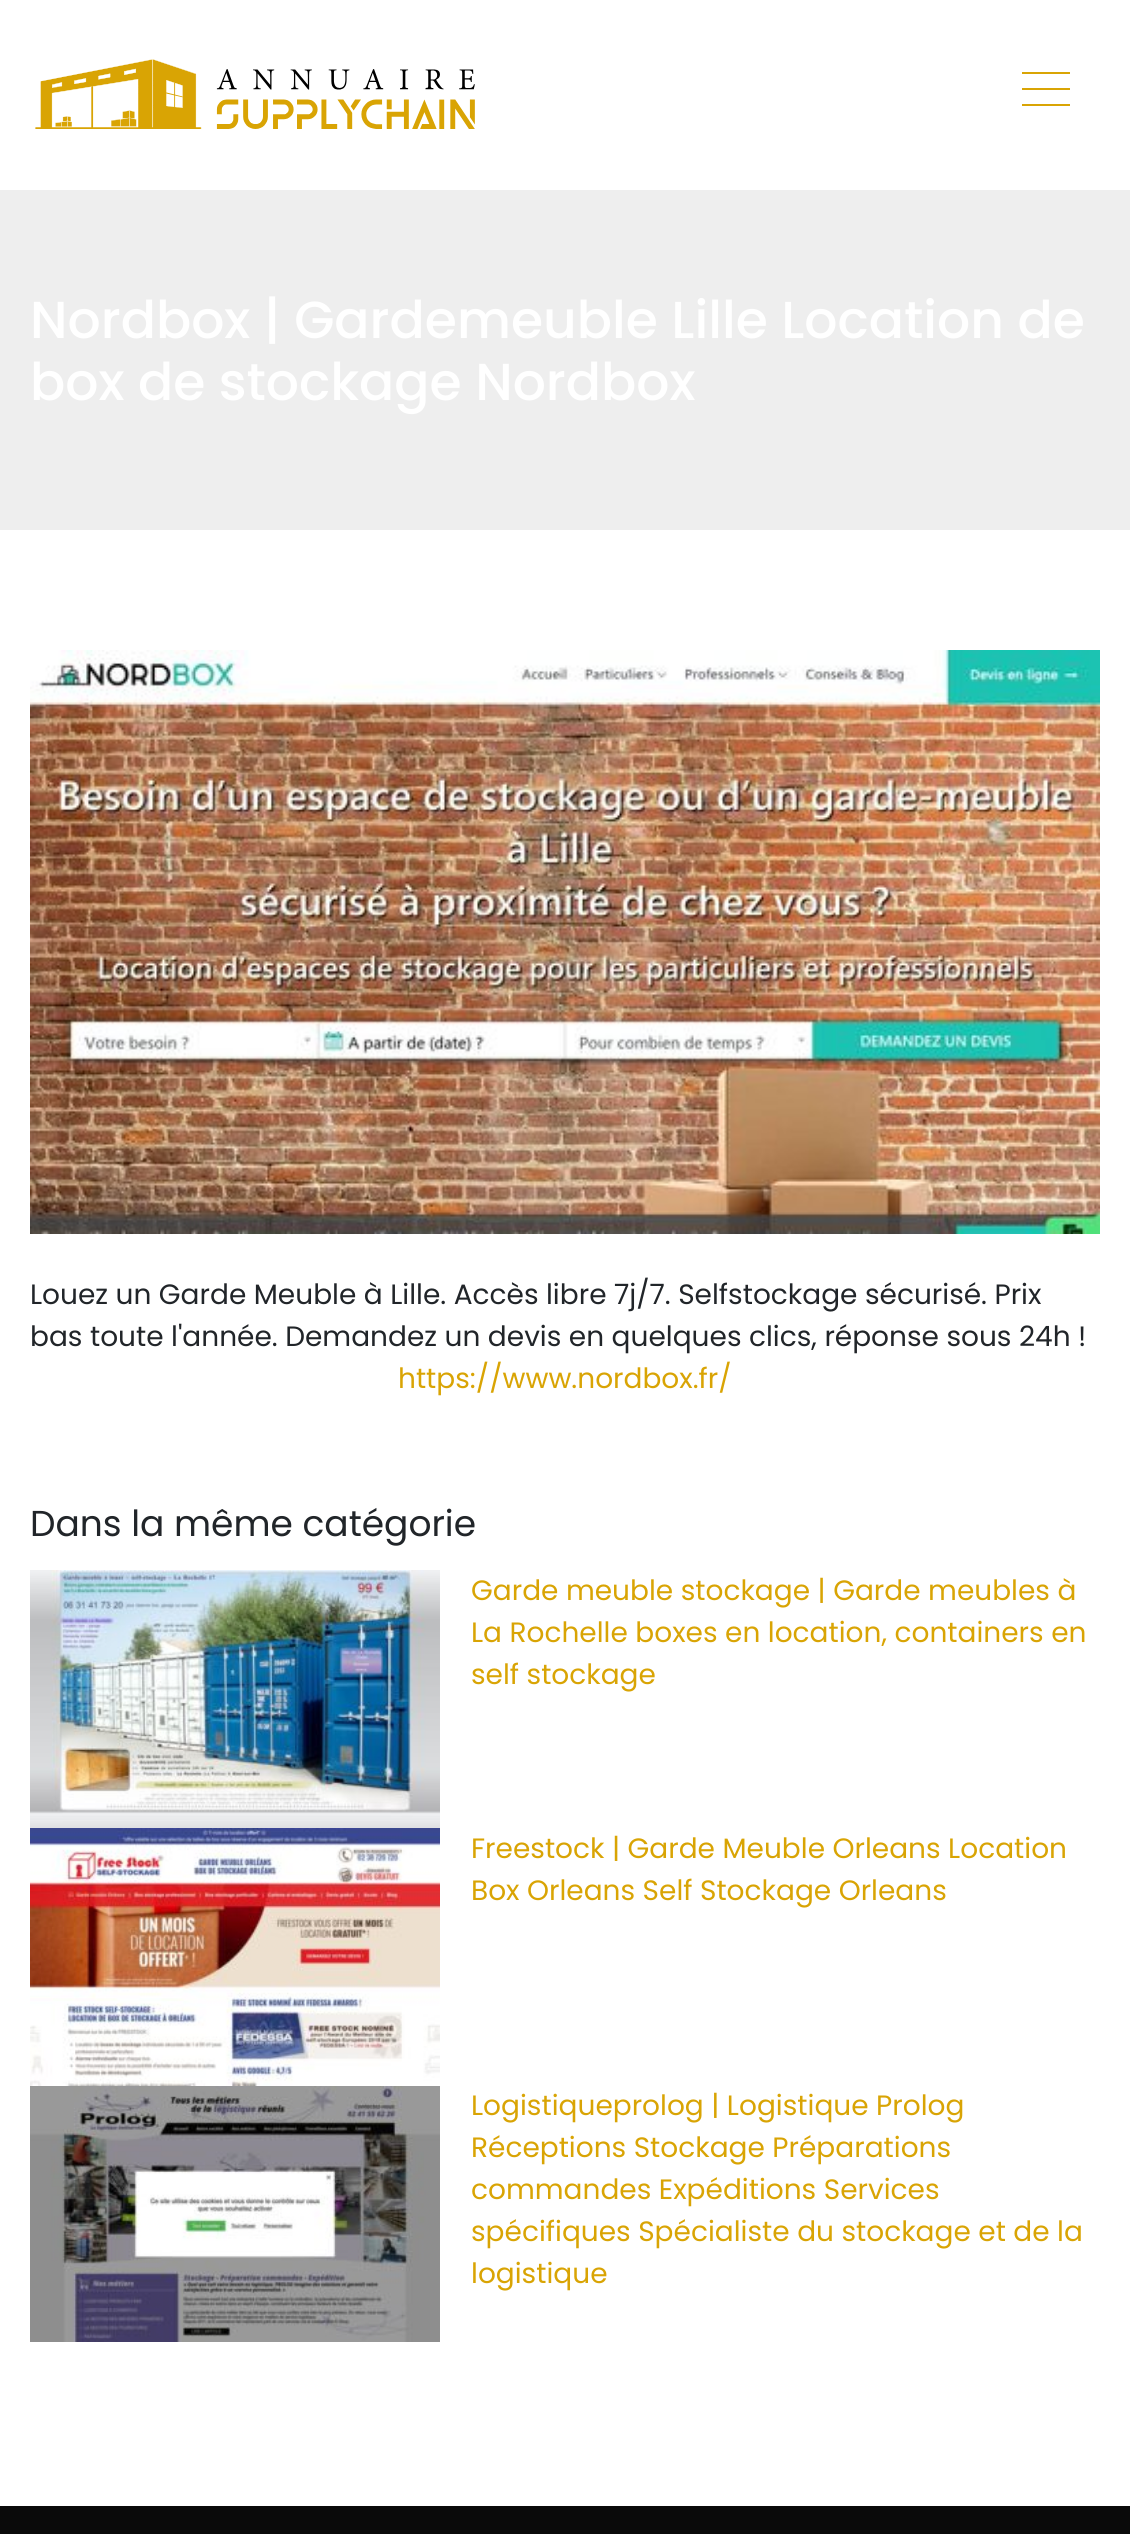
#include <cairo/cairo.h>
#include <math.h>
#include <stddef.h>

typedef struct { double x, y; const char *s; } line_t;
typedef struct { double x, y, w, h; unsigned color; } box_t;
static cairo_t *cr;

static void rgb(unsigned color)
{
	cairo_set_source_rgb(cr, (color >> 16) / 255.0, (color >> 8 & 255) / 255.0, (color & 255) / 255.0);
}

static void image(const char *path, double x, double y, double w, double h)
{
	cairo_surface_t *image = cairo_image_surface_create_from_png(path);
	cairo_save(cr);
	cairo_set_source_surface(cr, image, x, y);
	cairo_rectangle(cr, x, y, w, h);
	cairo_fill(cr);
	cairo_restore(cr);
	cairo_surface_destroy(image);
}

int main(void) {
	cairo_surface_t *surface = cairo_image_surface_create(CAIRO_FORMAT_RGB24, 1130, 2534);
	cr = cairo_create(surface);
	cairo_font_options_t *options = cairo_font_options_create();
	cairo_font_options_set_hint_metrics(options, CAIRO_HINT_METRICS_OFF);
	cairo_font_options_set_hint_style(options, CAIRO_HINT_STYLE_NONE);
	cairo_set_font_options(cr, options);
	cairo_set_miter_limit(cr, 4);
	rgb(0xffffff);
	cairo_paint(cr);
	image("img/1.png", 35, 59, 440, 70);
	{
		static const box_t items[] = {
			{1022, 72, 48, 2, 0xd9a404},
			{1022, 88, 48, 2, 0xd9a404},
			{1022, 104, 48, 2, 0xd9a404},
			{0, 190, 1130, 340, 0xeeeeee},
		};
		for (size_t i = 0; i < sizeof items / sizeof *items; i++) {
			rgb(items[i].color);
			cairo_rectangle(cr, items[i].x, items[i].y, items[i].w, items[i].h);
			cairo_fill(cr);
		}
	}
	image("img/2.png", 30, 650, 1070, 584);
	image("img/3.png", 30, 1570, 410, 258);
	image("img/4.png", 30, 1828, 410, 258);
	image("img/5.png", 30, 2086, 410, 256);
	rgb(0x0a0a0a);
	cairo_rectangle(cr, 0, 2506, 1130, 28);
	cairo_fill(cr);
	cairo_select_font_face(cr, "Poppins Medium", CAIRO_FONT_SLANT_NORMAL, CAIRO_FONT_WEIGHT_NORMAL);
	cairo_set_font_size(cr, 52);
	rgb(0xffffff);
	cairo_move_to(cr, 30, 338);
	cairo_show_text(cr, "Nordbox | Gardemeuble Lille Location de");
	cairo_move_to(cr, 30, 400);
	cairo_show_text(cr, "box de stockage Nordbox");
	cairo_select_font_face(cr, "Poppins", CAIRO_FONT_SLANT_NORMAL, CAIRO_FONT_WEIGHT_NORMAL);
	cairo_set_font_size(cr, 28);
	rgb(0x212529);
	cairo_move_to(cr, 30, 1304);
	cairo_show_text(cr, "Louez un Garde Meuble à Lille. Accès libre 7j/7. Selfstockage sécurisé. Prix");
	cairo_move_to(cr, 30, 1346);
	cairo_show_text(cr, "bas toute l'année. Demandez un devis en quelques clics, réponse sous 24h !");
	rgb(0xd9a404);
	cairo_move_to(cr, 398, 1388);
	cairo_show_text(cr, "https://www.nordbox.fr/");
	cairo_set_font_size(cr, 36);
	rgb(0x212529);
	cairo_move_to(cr, 30, 1536);
	cairo_show_text(cr, "Dans la même catégorie");
	cairo_set_font_size(cr, 28);
	rgb(0xd9a404);
	{
		static const line_t items[] = {
			{471, 1600, "Garde meuble stockage | Garde meubles à"},
			{471, 1642, "La Rochelle boxes en location, containers en"},
			{471, 1684, "self stockage"},
			{471, 1858, "Freestock | Garde Meuble Orleans Location"},
			{471, 1900, "Box Orleans Self Stockage Orleans"},
			{471, 2115, "Logistiqueprolog | Logistique Prolog"},
			{471, 2157, "Réceptions Stockage Préparations"},
			{471, 2199, "commandes Expéditions Services"},
			{471, 2241, "spécifiques Spécialiste du stockage et de la"},
			{471, 2283, "logistique"},
		};
		for (size_t i = 0; i < sizeof items / sizeof *items; i++) {
			cairo_move_to(cr, items[i].x, items[i].y);
			cairo_show_text(cr, items[i].s);
		}
	}
	cairo_surface_write_to_png(surface, "page.png");
	cairo_font_options_destroy(options);
	cairo_destroy(cr);
	cairo_surface_destroy(surface);
	return 0;
}
